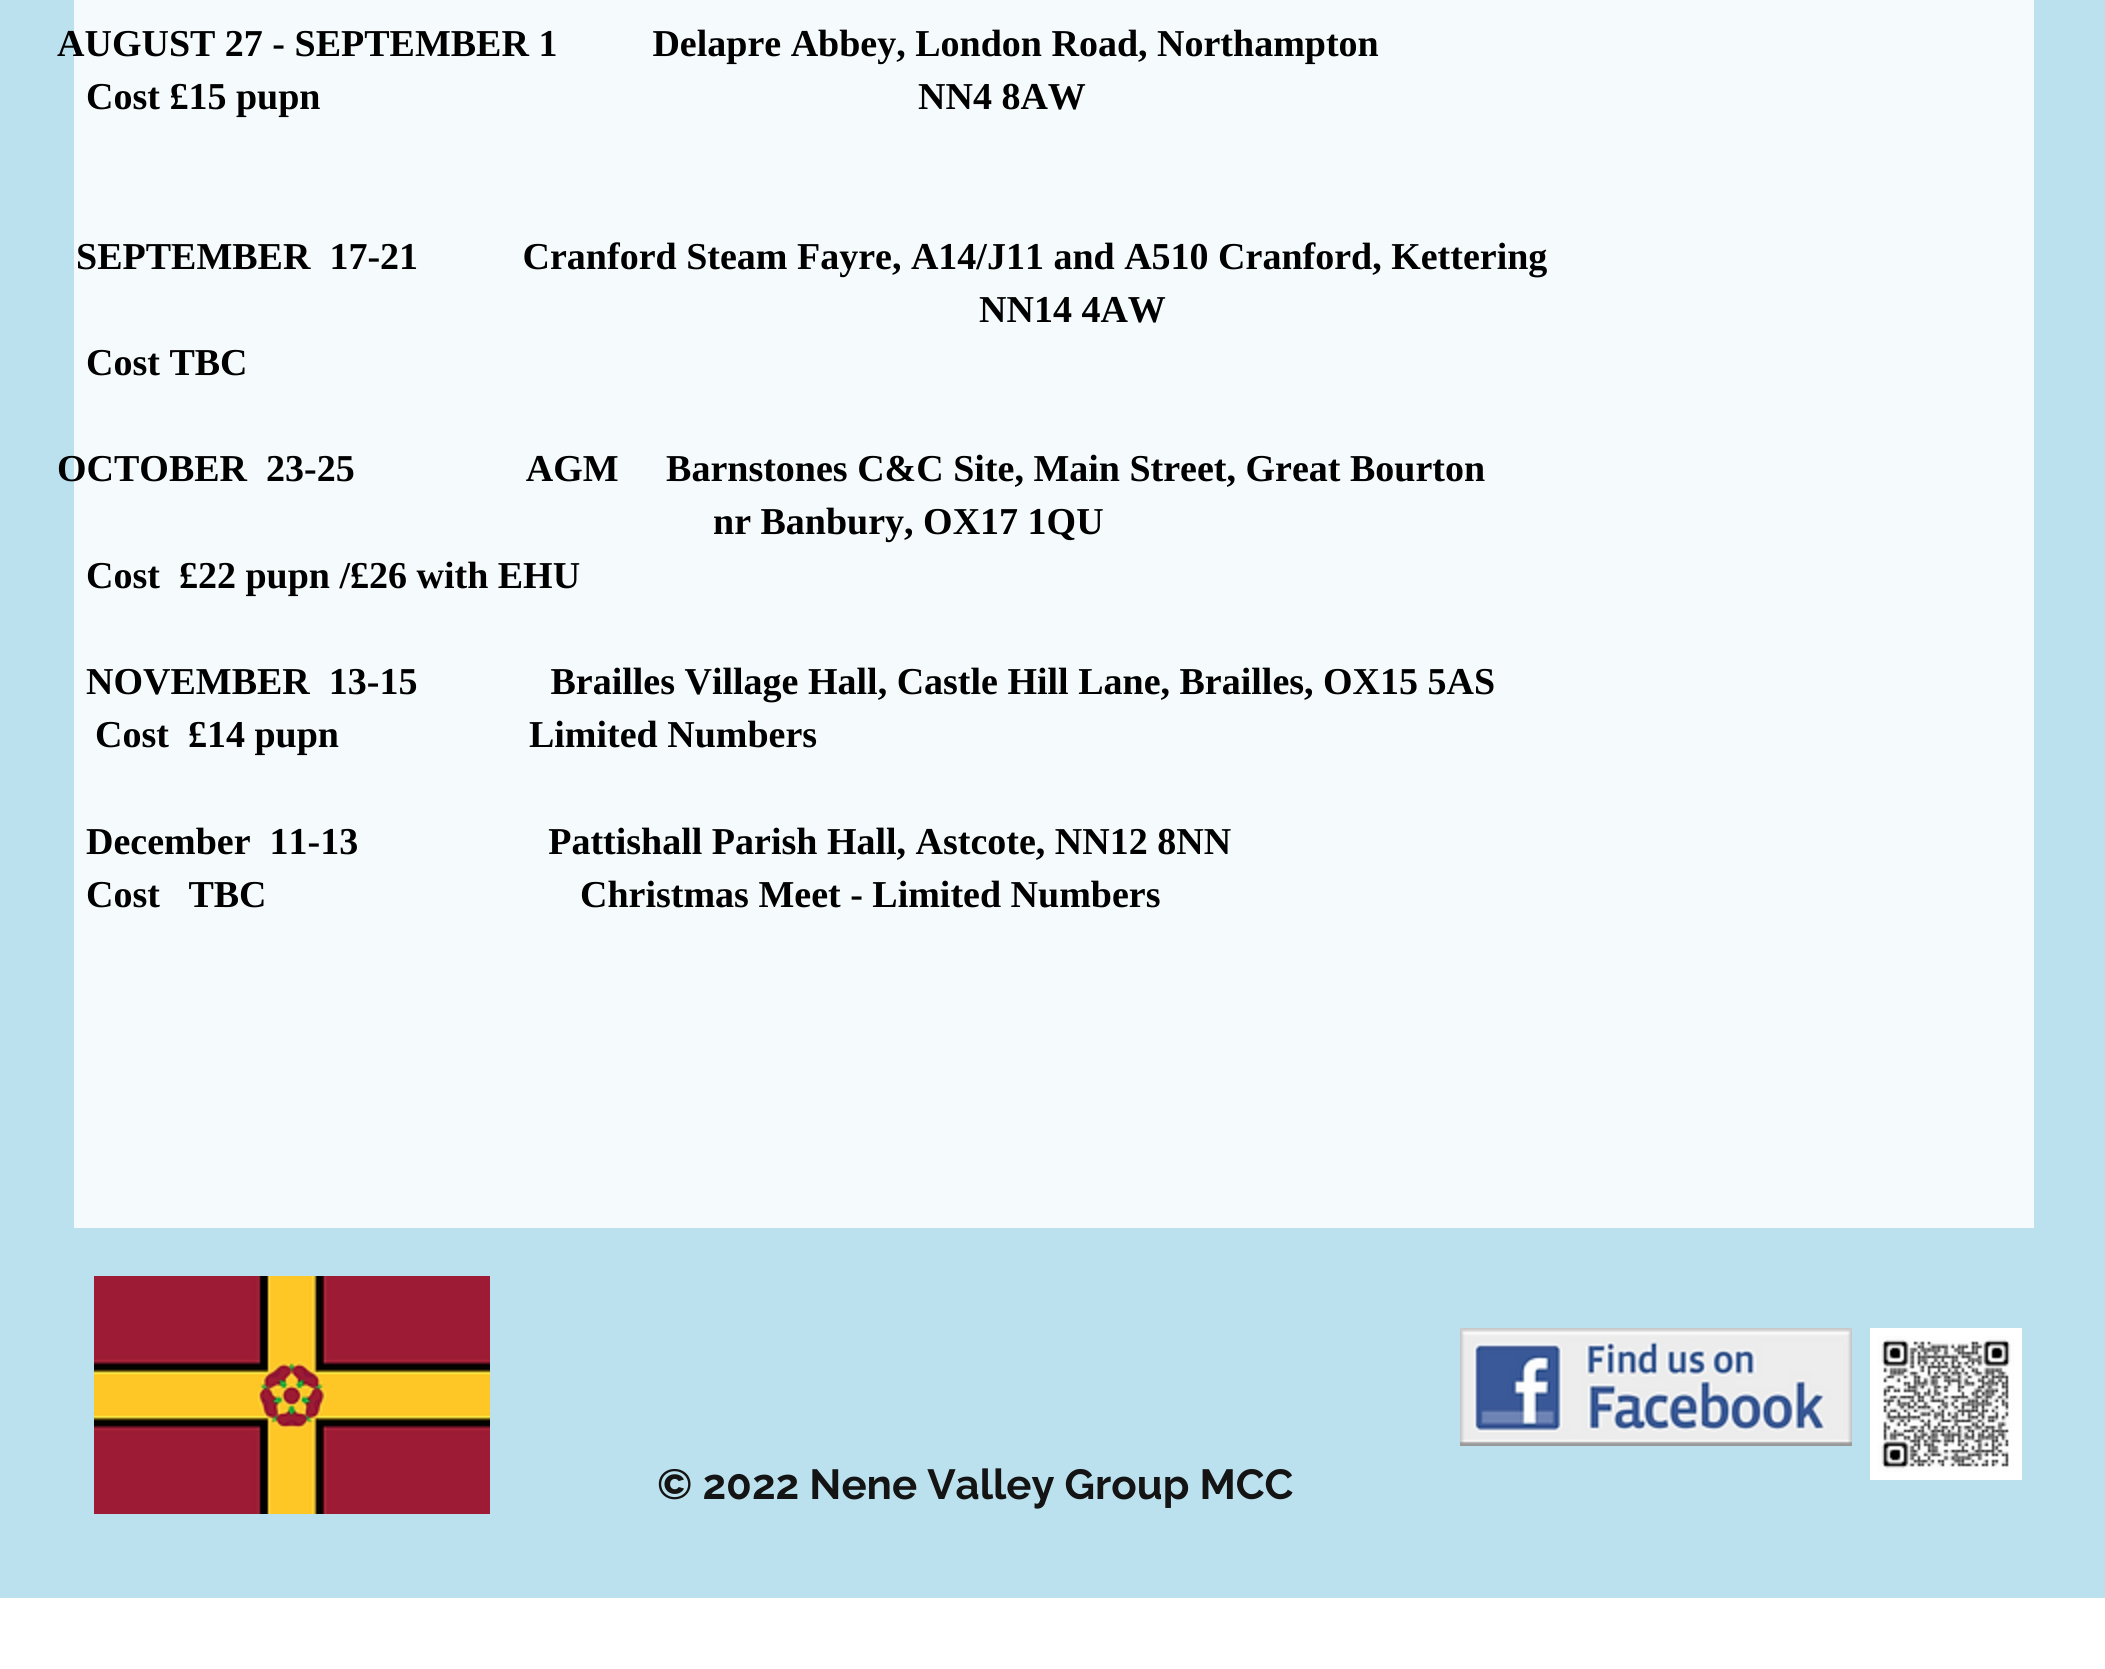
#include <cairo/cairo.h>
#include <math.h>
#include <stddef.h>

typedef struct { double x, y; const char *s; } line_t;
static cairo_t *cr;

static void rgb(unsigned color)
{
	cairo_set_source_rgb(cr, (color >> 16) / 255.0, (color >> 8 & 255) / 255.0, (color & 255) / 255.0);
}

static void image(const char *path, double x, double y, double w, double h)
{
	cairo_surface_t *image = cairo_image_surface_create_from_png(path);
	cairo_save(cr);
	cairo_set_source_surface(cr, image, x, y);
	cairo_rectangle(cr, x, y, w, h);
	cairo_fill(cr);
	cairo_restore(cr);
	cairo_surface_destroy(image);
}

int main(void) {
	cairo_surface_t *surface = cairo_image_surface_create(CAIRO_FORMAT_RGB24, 2105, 1669);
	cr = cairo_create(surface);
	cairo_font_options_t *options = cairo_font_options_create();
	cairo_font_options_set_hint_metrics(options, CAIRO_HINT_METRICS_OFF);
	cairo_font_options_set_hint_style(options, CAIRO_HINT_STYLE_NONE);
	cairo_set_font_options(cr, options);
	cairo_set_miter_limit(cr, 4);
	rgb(0xffffff);
	cairo_paint(cr);
	rgb(0xbce1ee);
	cairo_rectangle(cr, 0, 0, 2105, 1598);
	cairo_fill(cr);
	rgb(0xf5fafc);
	cairo_rectangle(cr, 74, 0, 1960, 1228);
	cairo_fill(cr);
	image("img/1.png", 94, 1276, 396, 238);
	image("img/2.png", 1460, 1328, 392, 118);
	image("img/3.png", 1870, 1328, 152, 152);
	cairo_select_font_face(cr, "Liberation Serif", CAIRO_FONT_SLANT_NORMAL, CAIRO_FONT_WEIGHT_BOLD);
	cairo_set_font_size(cr, 38);
	rgb(0x000000);
	{
		static const line_t items[] = {
			{57, 56, "AUGUST 27 - SEPTEMBER 1          Delapre Abbey, London Road, Northampton"},
			{86, 109, "Cost £15 pupn"},
			{918, 109, "NN4 8AW"},
			{76, 269, "SEPTEMBER  17-21           Cranford Steam Fayre, A14/J11 and A510 Cranford, Kettering"},
			{979, 322, "NN14 4AW"},
			{86, 375, "Cost TBC"},
			{57, 481, "OCTOBER  23-25                  AGM     Barnstones C&C Site, Main Street, Great Bourton"},
			{713, 534, "nr Banbury, OX17 1QU"},
			{86, 588, "Cost  £22 pupn /£26 with EHU"},
			{86, 694, "NOVEMBER  13-15              Brailles Village Hall, Castle Hill Lane, Brailles, OX15 5AS"},
			{95, 747, "Cost  £14 pupn                    Limited Numbers"},
			{86, 854, "December  11-13                    Pattishall Parish Hall, Astcote, NN12 8NN"},
			{86, 907, "Cost   TBC                                 Christmas Meet - Limited Numbers"},
		};
		for (size_t i = 0; i < sizeof items / sizeof *items; i++) {
			cairo_move_to(cr, items[i].x, items[i].y);
			cairo_show_text(cr, items[i].s);
		}
	}
	cairo_select_font_face(cr, "Raleway", CAIRO_FONT_SLANT_NORMAL, CAIRO_FONT_WEIGHT_BOLD);
	cairo_set_font_size(cr, 42);
	rgb(0x141414);
	cairo_move_to(cr, 657, 1499);
	cairo_show_text(cr, "© 2022 Nene Valley Group MCC");
	cairo_surface_write_to_png(surface, "page.png");
	cairo_font_options_destroy(options);
	cairo_destroy(cr);
	cairo_surface_destroy(surface);
	return 0;
}
